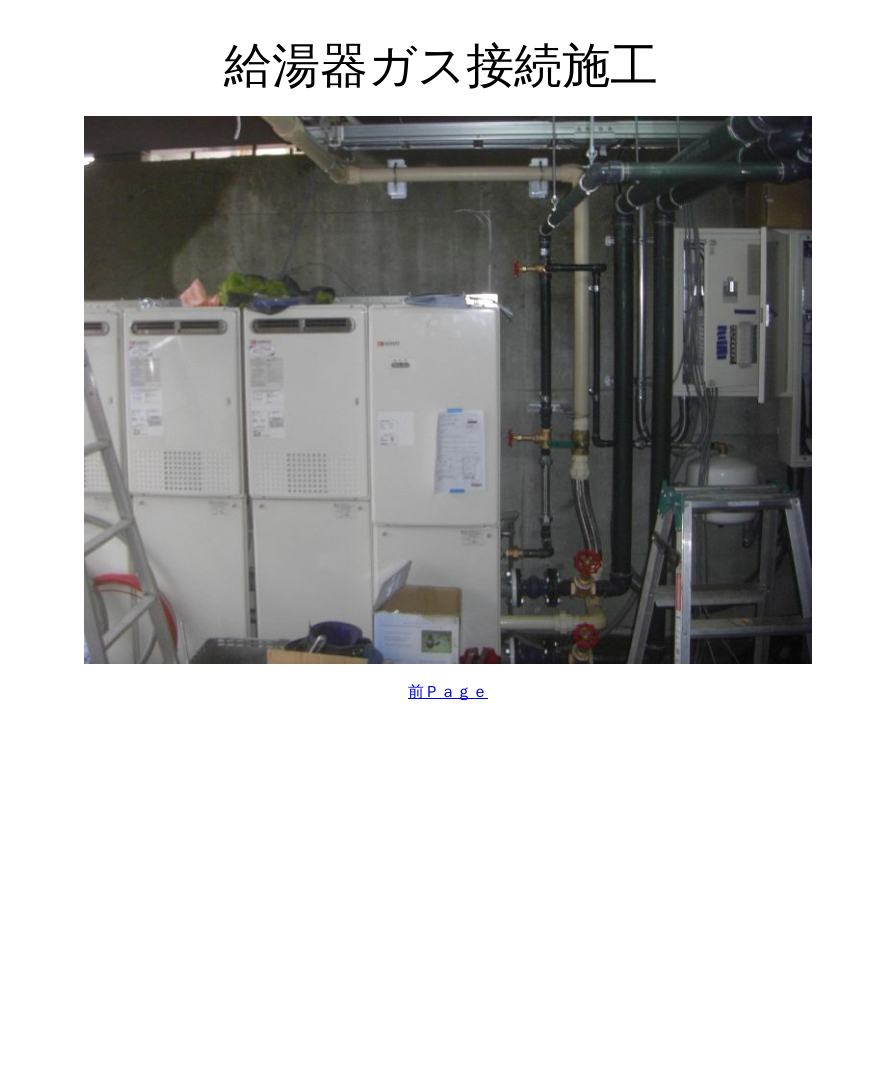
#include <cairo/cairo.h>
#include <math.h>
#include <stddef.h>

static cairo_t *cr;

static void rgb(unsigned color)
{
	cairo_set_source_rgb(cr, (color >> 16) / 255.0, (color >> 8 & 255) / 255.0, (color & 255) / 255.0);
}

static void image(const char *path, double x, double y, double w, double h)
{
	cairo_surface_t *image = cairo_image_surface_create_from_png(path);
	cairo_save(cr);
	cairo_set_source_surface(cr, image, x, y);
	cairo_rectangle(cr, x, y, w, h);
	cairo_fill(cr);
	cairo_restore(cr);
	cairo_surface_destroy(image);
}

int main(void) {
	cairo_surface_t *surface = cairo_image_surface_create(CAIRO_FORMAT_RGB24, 895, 1082);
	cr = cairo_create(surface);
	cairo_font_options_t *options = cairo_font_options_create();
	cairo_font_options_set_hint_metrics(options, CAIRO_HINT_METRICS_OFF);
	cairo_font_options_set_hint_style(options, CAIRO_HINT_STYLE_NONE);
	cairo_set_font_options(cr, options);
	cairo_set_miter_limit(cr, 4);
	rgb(0xffffff);
	cairo_paint(cr);
	image("img/1.png", 84, 116, 728, 548);
	rgb(0x0000ee);
	cairo_rectangle(cr, 408, 698, 80, 1);
	cairo_fill(cr);
	cairo_select_font_face(cr, "WenQuanYi Zen Hei Medium", CAIRO_FONT_SLANT_NORMAL, CAIRO_FONT_WEIGHT_NORMAL);
	cairo_set_font_size(cr, 48);
	rgb(0x000000);
	cairo_move_to(cr, 224, 82);
	cairo_show_text(cr, "給湯器ガス接続施工");
	cairo_set_font_size(cr, 16);
	rgb(0x0000ee);
	cairo_move_to(cr, 408, 697);
	cairo_show_text(cr, "前Ｐａｇｅ");
	cairo_surface_write_to_png(surface, "page.png");
	cairo_font_options_destroy(options);
	cairo_destroy(cr);
	cairo_surface_destroy(surface);
	return 0;
}
